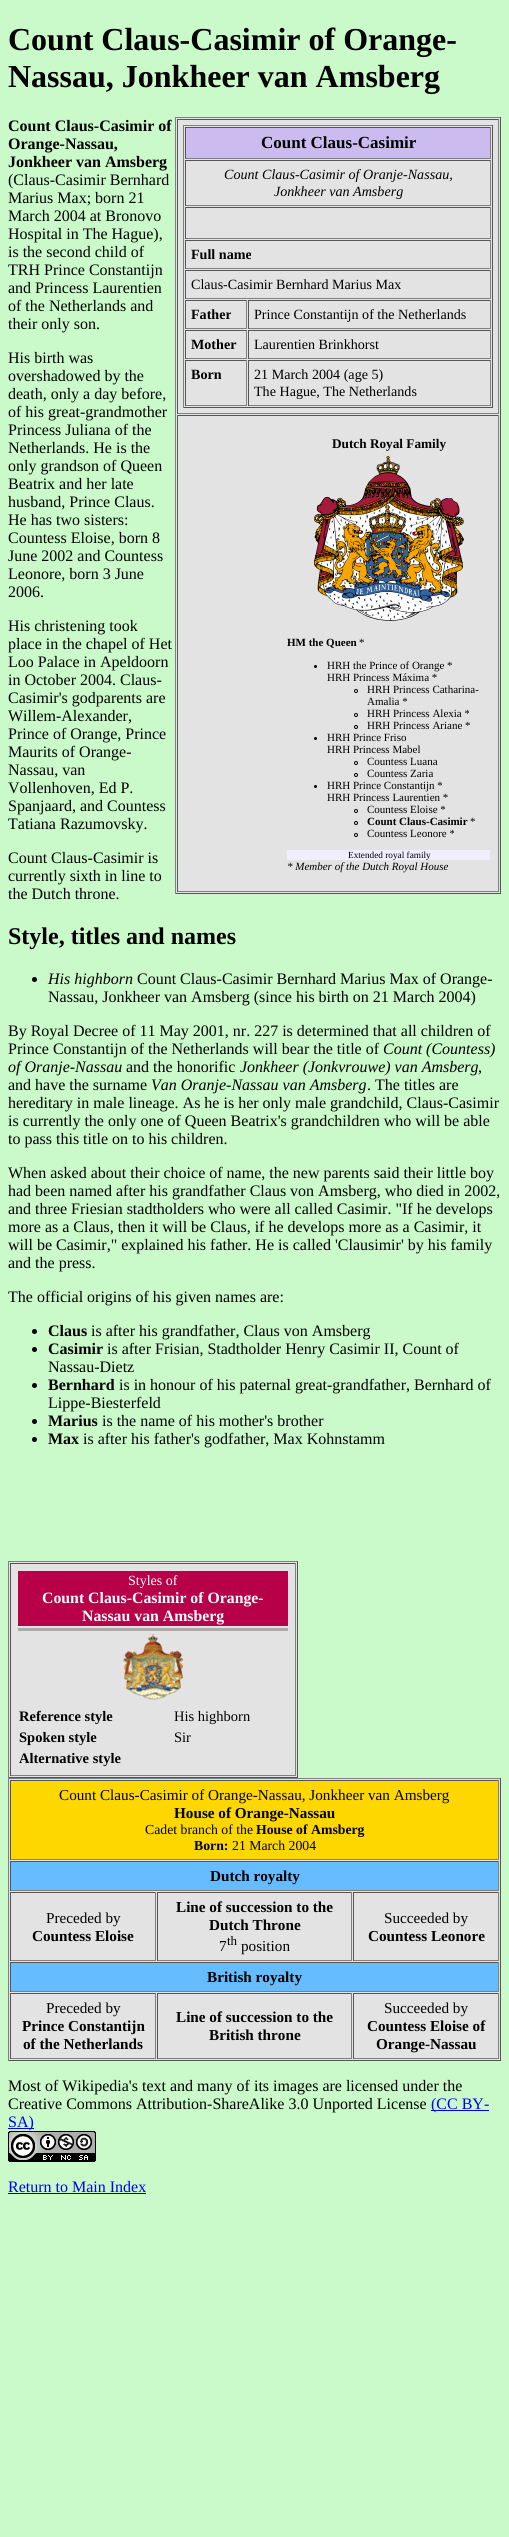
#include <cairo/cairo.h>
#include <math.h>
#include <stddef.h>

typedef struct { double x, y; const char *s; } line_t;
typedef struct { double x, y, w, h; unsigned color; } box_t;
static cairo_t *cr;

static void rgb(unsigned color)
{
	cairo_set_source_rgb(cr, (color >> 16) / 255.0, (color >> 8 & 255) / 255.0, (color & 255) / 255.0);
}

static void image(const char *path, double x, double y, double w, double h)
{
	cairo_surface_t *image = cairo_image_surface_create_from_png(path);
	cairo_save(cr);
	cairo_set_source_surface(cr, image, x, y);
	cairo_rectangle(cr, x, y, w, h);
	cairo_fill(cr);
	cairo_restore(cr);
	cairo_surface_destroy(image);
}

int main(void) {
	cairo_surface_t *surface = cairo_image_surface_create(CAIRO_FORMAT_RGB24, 509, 2537);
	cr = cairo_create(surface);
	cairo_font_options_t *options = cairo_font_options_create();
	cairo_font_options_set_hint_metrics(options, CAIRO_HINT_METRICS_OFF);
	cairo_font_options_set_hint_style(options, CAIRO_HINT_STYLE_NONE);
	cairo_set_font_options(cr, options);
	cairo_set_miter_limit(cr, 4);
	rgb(0xcafac9);
	cairo_paint(cr);
	{
		static const box_t items[] = {
			{176, 118, 324, 775, 0xe3e3e3},
			{175, 117, 326, 1, 0x808080},
			{500, 117, 1, 777, 0x555555},
			{175, 893, 326, 1, 0x555555},
			{175, 117, 1, 777, 0x808080},
			{177, 119, 322, 1, 0x555555},
			{498, 119, 1, 295, 0x808080},
			{177, 413, 322, 1, 0x808080},
			{177, 119, 1, 295, 0x555555},
			{183, 125, 310, 1, 0x808080},
			{492, 125, 1, 283, 0x555555},
			{183, 407, 310, 1, 0x555555},
			{183, 125, 1, 283, 0x808080},
			{186, 128, 304, 30, 0xccbbee},
			{185, 127, 306, 1, 0x555555},
			{490, 127, 1, 32, 0x808080},
			{185, 158, 306, 1, 0x808080},
			{185, 127, 1, 32, 0x555555},
			{185, 160, 306, 1, 0x555555},
			{490, 160, 1, 46, 0x808080},
			{185, 205, 306, 1, 0x808080},
			{185, 160, 1, 46, 0x555555},
			{185, 207, 306, 1, 0x555555},
			{490, 207, 1, 32, 0x808080},
			{185, 238, 306, 1, 0x808080},
			{185, 207, 1, 32, 0x555555},
			{185, 240, 306, 1, 0x555555},
			{490, 240, 1, 29, 0x808080},
			{185, 268, 306, 1, 0x808080},
			{185, 240, 1, 29, 0x555555},
			{185, 270, 306, 1, 0x555555},
			{490, 270, 1, 29, 0x808080},
			{185, 298, 306, 1, 0x808080},
			{185, 270, 1, 29, 0x555555},
			{185, 300, 62, 1, 0x555555},
			{246, 300, 1, 29, 0x808080},
			{185, 328, 62, 1, 0x808080},
			{185, 300, 1, 29, 0x555555},
			{248, 300, 243, 1, 0x555555},
			{490, 300, 1, 29, 0x808080},
			{248, 328, 243, 1, 0x808080},
			{248, 300, 1, 29, 0x555555},
			{185, 330, 62, 1, 0x555555},
			{246, 330, 1, 29, 0x808080},
			{185, 358, 62, 1, 0x808080},
			{185, 330, 1, 29, 0x555555},
			{248, 330, 243, 1, 0x555555},
			{490, 330, 1, 29, 0x808080},
			{248, 358, 243, 1, 0x808080},
			{248, 330, 1, 29, 0x555555},
			{185, 360, 62, 1, 0x555555},
			{246, 360, 1, 46, 0x808080},
			{185, 405, 62, 1, 0x808080},
			{185, 360, 1, 46, 0x555555},
			{248, 360, 243, 1, 0x555555},
			{490, 360, 1, 46, 0x808080},
			{248, 405, 243, 1, 0x808080},
			{248, 360, 1, 46, 0x555555},
			{177, 415, 322, 1, 0x555555},
			{498, 415, 1, 477, 0x808080},
			{177, 891, 322, 1, 0x808080},
			{177, 415, 1, 477, 0x555555},
		};
		for (size_t i = 0; i < sizeof items / sizeof *items; i++) {
			rgb(items[i].color);
			cairo_rectangle(cr, items[i].x, items[i].y, items[i].w, items[i].h);
			cairo_fill(cr);
		}
	}
	image("img/1.png", 314, 456, 150, 165);
	rgb(0x000000);
	cairo_arc(cr, 315.5, 666.5, 1.5, 0, 2 * M_PI);
	cairo_fill(cr);
	cairo_arc(cr, 356, 691, 1.5, 0, 2 * M_PI);
	cairo_set_line_width(cr, 1);
	cairo_stroke(cr);
	cairo_arc(cr, 356, 715, 1.5, 0, 2 * M_PI);
	cairo_stroke(cr);
	cairo_arc(cr, 356, 727, 1.5, 0, 2 * M_PI);
	cairo_stroke(cr);
	cairo_arc(cr, 315.5, 738.5, 1.5, 0, 2 * M_PI);
	cairo_fill(cr);
	cairo_arc(cr, 356, 763, 1.5, 0, 2 * M_PI);
	cairo_stroke(cr);
	cairo_arc(cr, 356, 775, 1.5, 0, 2 * M_PI);
	cairo_stroke(cr);
	cairo_arc(cr, 315.5, 786.5, 1.5, 0, 2 * M_PI);
	cairo_fill(cr);
	cairo_arc(cr, 356, 811, 1.5, 0, 2 * M_PI);
	cairo_stroke(cr);
	cairo_arc(cr, 356, 823, 1.5, 0, 2 * M_PI);
	cairo_stroke(cr);
	cairo_arc(cr, 356, 835, 1.5, 0, 2 * M_PI);
	cairo_stroke(cr);
	rgb(0xf0eeff);
	cairo_rectangle(cr, 287, 850, 203, 10);
	cairo_fill(cr);
	rgb(0x000000);
	cairo_arc(cr, 34.5, 979.5, 2.5, 0, 2 * M_PI);
	cairo_fill(cr);
	cairo_arc(cr, 34.5, 1331.5, 2.5, 0, 2 * M_PI);
	cairo_fill(cr);
	cairo_arc(cr, 34.5, 1349.5, 2.5, 0, 2 * M_PI);
	cairo_fill(cr);
	cairo_arc(cr, 34.5, 1385.5, 2.5, 0, 2 * M_PI);
	cairo_fill(cr);
	cairo_arc(cr, 34.5, 1421.5, 2.5, 0, 2 * M_PI);
	cairo_fill(cr);
	cairo_arc(cr, 34.5, 1439.5, 2.5, 0, 2 * M_PI);
	cairo_fill(cr);
	{
		static const box_t items[] = {
			{9, 1562, 288, 215, 0xe3e3e3},
			{8, 1561, 290, 1, 0x808080},
			{297, 1561, 1, 217, 0x555555},
			{8, 1777, 290, 1, 0x555555},
			{8, 1561, 1, 217, 0x808080},
			{10, 1563, 286, 1, 0x555555},
			{295, 1563, 1, 213, 0x808080},
			{10, 1775, 286, 1, 0x808080},
			{10, 1563, 1, 213, 0x555555},
			{18, 1571, 270, 55, 0xb80049},
			{18, 1628, 270, 3, 0xaaaaaa},
		};
		for (size_t i = 0; i < sizeof items / sizeof *items; i++) {
			rgb(items[i].color);
			cairo_rectangle(cr, items[i].x, items[i].y, items[i].w, items[i].h);
			cairo_fill(cr);
		}
	}
	image("img/2.png", 123, 1634, 60, 66);
	{
		static const box_t items[] = {
			{9, 1779, 491, 281, 0xe3e3e3},
			{8, 1778, 493, 1, 0x808080},
			{500, 1778, 1, 283, 0x555555},
			{8, 2060, 493, 1, 0x555555},
			{8, 1778, 1, 283, 0x808080},
			{11, 1781, 487, 78, 0xffd700},
			{10, 1780, 489, 1, 0x555555},
			{498, 1780, 1, 80, 0x808080},
			{10, 1859, 489, 1, 0x808080},
			{10, 1780, 1, 80, 0x555555},
			{11, 1862, 487, 28, 0x65bcff},
			{10, 1861, 489, 1, 0x555555},
			{498, 1861, 1, 30, 0x808080},
			{10, 1890, 489, 1, 0x808080},
			{10, 1861, 1, 30, 0x555555},
			{10, 1892, 146, 1, 0x555555},
			{155, 1892, 1, 69, 0x808080},
			{10, 1960, 146, 1, 0x808080},
			{10, 1892, 1, 69, 0x555555},
			{157, 1892, 195, 1, 0x555555},
			{351, 1892, 1, 69, 0x808080},
			{157, 1960, 195, 1, 0x808080},
			{157, 1892, 1, 69, 0x555555},
			{353, 1892, 146, 1, 0x555555},
			{498, 1892, 1, 69, 0x808080},
			{353, 1960, 146, 1, 0x808080},
			{353, 1892, 1, 69, 0x555555},
			{11, 1963, 487, 28, 0x65bcff},
			{10, 1962, 489, 1, 0x555555},
			{498, 1962, 1, 30, 0x808080},
			{10, 1991, 489, 1, 0x808080},
			{10, 1962, 1, 30, 0x555555},
			{10, 1993, 146, 1, 0x555555},
			{155, 1993, 1, 66, 0x808080},
			{10, 2058, 146, 1, 0x808080},
			{10, 1993, 1, 66, 0x555555},
			{157, 1993, 195, 1, 0x555555},
			{351, 1993, 1, 66, 0x808080},
			{157, 2058, 195, 1, 0x808080},
			{157, 1993, 1, 66, 0x555555},
			{353, 1993, 146, 1, 0x555555},
			{498, 1993, 1, 66, 0x808080},
			{353, 2058, 146, 1, 0x808080},
			{353, 1993, 1, 66, 0x555555},
			{431, 2110, 58, 1, 0x0000ee},
			{8, 2128, 26, 1, 0x0000ee},
		};
		for (size_t i = 0; i < sizeof items / sizeof *items; i++) {
			rgb(items[i].color);
			cairo_rectangle(cr, items[i].x, items[i].y, items[i].w, items[i].h);
			cairo_fill(cr);
		}
	}
	image("img/3.png", 8, 2131, 88, 31);
	cairo_rectangle(cr, 8, 2193, 138, 1);
	cairo_fill(cr);
	cairo_select_font_face(cr, "Liberation Serif", CAIRO_FONT_SLANT_NORMAL, CAIRO_FONT_WEIGHT_BOLD);
	cairo_set_font_size(cr, 32);
	rgb(0x000000);
	cairo_move_to(cr, 8, 50);
	cairo_show_text(cr, "Count Claus-Casimir of Orange-");
	cairo_move_to(cr, 8, 87);
	cairo_show_text(cr, "Nassau, Jonkheer van Amsberg");
	cairo_set_font_size(cr, 16);
	{
		static const line_t items[] = {
			{8, 131, "Count Claus-Casimir of"},
			{8, 149, "Orange-Nassau,"},
			{8, 167, "Jonkheer van Amsberg"},
		};
		for (size_t i = 0; i < sizeof items / sizeof *items; i++) {
			cairo_move_to(cr, items[i].x, items[i].y);
			cairo_show_text(cr, items[i].s);
		}
	}
	cairo_select_font_face(cr, "Liberation Serif", CAIRO_FONT_SLANT_NORMAL, CAIRO_FONT_WEIGHT_NORMAL);
	{
		static const line_t items[] = {
			{8, 185, "(Claus-Casimir Bernhard"},
			{8, 203, "Marius Max; born 21"},
			{8, 221, "March 2004 at Bronovo"},
			{8, 239, "Hospital in The Hague),"},
			{8, 257, "is the second child of"},
			{8, 275, "TRH Prince Constantijn"},
			{8, 293, "and Princess Laurentien"},
			{8, 311, "of the Netherlands and"},
			{8, 329, "their only son."},
		};
		for (size_t i = 0; i < sizeof items / sizeof *items; i++) {
			cairo_move_to(cr, items[i].x, items[i].y);
			cairo_show_text(cr, items[i].s);
		}
	}
	cairo_select_font_face(cr, "Liberation Serif", CAIRO_FONT_SLANT_NORMAL, CAIRO_FONT_WEIGHT_BOLD);
	cairo_set_font_size(cr, 17);
	cairo_move_to(cr, 261, 148);
	cairo_show_text(cr, "Count Claus-Casimir");
	cairo_select_font_face(cr, "Liberation Serif", CAIRO_FONT_SLANT_ITALIC, CAIRO_FONT_WEIGHT_NORMAL);
	cairo_set_font_size(cr, 14.1);
	cairo_move_to(cr, 224, 179);
	cairo_show_text(cr, "Count Claus-Casimir of Oranje-Nassau,");
	cairo_move_to(cr, 274, 196);
	cairo_show_text(cr, "Jonkheer van Amsberg");
	cairo_select_font_face(cr, "Liberation Serif", CAIRO_FONT_SLANT_NORMAL, CAIRO_FONT_WEIGHT_BOLD);
	cairo_move_to(cr, 191, 259);
	cairo_show_text(cr, "Full name");
	cairo_select_font_face(cr, "Liberation Serif", CAIRO_FONT_SLANT_NORMAL, CAIRO_FONT_WEIGHT_NORMAL);
	cairo_move_to(cr, 191, 289);
	cairo_show_text(cr, "Claus-Casimir Bernhard Marius Max");
	cairo_select_font_face(cr, "Liberation Serif", CAIRO_FONT_SLANT_NORMAL, CAIRO_FONT_WEIGHT_BOLD);
	cairo_move_to(cr, 191, 319);
	cairo_show_text(cr, "Father");
	cairo_select_font_face(cr, "Liberation Serif", CAIRO_FONT_SLANT_NORMAL, CAIRO_FONT_WEIGHT_NORMAL);
	cairo_move_to(cr, 254, 319);
	cairo_show_text(cr, "Prince Constantijn of the Netherlands");
	cairo_select_font_face(cr, "Liberation Serif", CAIRO_FONT_SLANT_NORMAL, CAIRO_FONT_WEIGHT_BOLD);
	cairo_move_to(cr, 191, 349);
	cairo_show_text(cr, "Mother");
	cairo_select_font_face(cr, "Liberation Serif", CAIRO_FONT_SLANT_NORMAL, CAIRO_FONT_WEIGHT_NORMAL);
	cairo_move_to(cr, 254, 349);
	cairo_show_text(cr, "Laurentien Brinkhorst");
	cairo_select_font_face(cr, "Liberation Serif", CAIRO_FONT_SLANT_NORMAL, CAIRO_FONT_WEIGHT_BOLD);
	cairo_move_to(cr, 191, 379);
	cairo_show_text(cr, "Born");
	cairo_select_font_face(cr, "Liberation Serif", CAIRO_FONT_SLANT_NORMAL, CAIRO_FONT_WEIGHT_NORMAL);
	cairo_move_to(cr, 254, 379);
	cairo_show_text(cr, "21 March 2004 (age 5)");
	cairo_move_to(cr, 254, 396);
	cairo_show_text(cr, "The Hague, The Netherlands");
	cairo_select_font_face(cr, "Liberation Serif", CAIRO_FONT_SLANT_NORMAL, CAIRO_FONT_WEIGHT_BOLD);
	cairo_set_font_size(cr, 13.25);
	cairo_move_to(cr, 332, 448);
	cairo_show_text(cr, "Dutch Royal Family");
	cairo_set_font_size(cr, 11);
	cairo_move_to(cr, 287, 646);
	cairo_show_text(cr, "HM the Queen");
	cairo_select_font_face(cr, "Liberation Serif", CAIRO_FONT_SLANT_NORMAL, CAIRO_FONT_WEIGHT_NORMAL);
	{
		static const line_t items[] = {
			{359, 646, "*"},
			{327, 669, "HRH the Prince of Orange *"},
			{327, 681, "HRH Princess Máxima *"},
			{367, 693, "HRH Princess Catharina-"},
			{367, 705, "Amalia *"},
			{367, 717, "HRH Princess Alexia *"},
			{367, 729, "HRH Princess Ariane *"},
			{327, 741, "HRH Prince Friso"},
			{327, 753, "HRH Princess Mabel"},
			{367, 765, "Countess Luana"},
			{367, 777, "Countess Zaria"},
			{327, 789, "HRH Prince Constantijn *"},
			{327, 801, "HRH Princess Laurentien *"},
			{367, 813, "Countess Eloise *"},
		};
		for (size_t i = 0; i < sizeof items / sizeof *items; i++) {
			cairo_move_to(cr, items[i].x, items[i].y);
			cairo_show_text(cr, items[i].s);
		}
	}
	cairo_select_font_face(cr, "Liberation Serif", CAIRO_FONT_SLANT_NORMAL, CAIRO_FONT_WEIGHT_BOLD);
	cairo_move_to(cr, 367, 825);
	cairo_show_text(cr, "Count Claus-Casimir");
	cairo_select_font_face(cr, "Liberation Serif", CAIRO_FONT_SLANT_NORMAL, CAIRO_FONT_WEIGHT_NORMAL);
	cairo_move_to(cr, 470, 825);
	cairo_show_text(cr, "*");
	cairo_move_to(cr, 367, 837);
	cairo_show_text(cr, "Countess Leonore *");
	cairo_set_font_size(cr, 9.25);
	cairo_move_to(cr, 348, 858);
	cairo_show_text(cr, "Extended royal family");
	cairo_select_font_face(cr, "Liberation Serif", CAIRO_FONT_SLANT_ITALIC, CAIRO_FONT_WEIGHT_NORMAL);
	cairo_set_font_size(cr, 11);
	cairo_move_to(cr, 287, 870);
	cairo_show_text(cr, "* Member of the Dutch Royal House");
	cairo_select_font_face(cr, "Liberation Serif", CAIRO_FONT_SLANT_NORMAL, CAIRO_FONT_WEIGHT_NORMAL);
	cairo_set_font_size(cr, 16);
	{
		static const line_t items[] = {
			{8, 363, "His birth was"},
			{8, 381, "overshadowed by the"},
			{8, 399, "death, only a day before,"},
			{8, 417, "of his great-grandmother"},
			{8, 435, "Princess Juliana of the"},
			{8, 453, "Netherlands. He is the"},
			{8, 471, "only grandson of Queen"},
			{8, 489, "Beatrix and her late"},
			{8, 507, "husband, Prince Claus."},
			{8, 525, "He has two sisters:"},
			{8, 543, "Countess Eloise, born 8"},
			{8, 561, "June 2002 and Countess"},
			{8, 579, "Leonore, born 3 June"},
			{8, 597, "2006."},
			{8, 631, "His christening took"},
			{8, 649, "place in the chapel of Het"},
			{8, 667, "Loo Palace in Apeldoorn"},
			{8, 685, "in October 2004. Claus-"},
			{8, 703, "Casimir's godparents are"},
			{8, 721, "Willem-Alexander,"},
			{8, 739, "Prince of Orange, Prince"},
			{8, 757, "Maurits of Orange-"},
			{8, 775, "Nassau, van"},
			{8, 793, "Vollenhoven, Ed P."},
			{8, 811, "Spanjaard, and Countess"},
			{8, 829, "Tatiana Razumovsky."},
			{8, 863, "Count Claus-Casimir is"},
			{8, 881, "currently sixth in line to"},
			{8, 899, "the Dutch throne."},
		};
		for (size_t i = 0; i < sizeof items / sizeof *items; i++) {
			cairo_move_to(cr, items[i].x, items[i].y);
			cairo_show_text(cr, items[i].s);
		}
	}
	cairo_select_font_face(cr, "Liberation Serif", CAIRO_FONT_SLANT_NORMAL, CAIRO_FONT_WEIGHT_BOLD);
	cairo_set_font_size(cr, 24);
	cairo_move_to(cr, 8, 944);
	cairo_show_text(cr, "Style, titles and names");
	cairo_select_font_face(cr, "Liberation Serif", CAIRO_FONT_SLANT_ITALIC, CAIRO_FONT_WEIGHT_NORMAL);
	cairo_set_font_size(cr, 16);
	cairo_move_to(cr, 48, 984);
	cairo_show_text(cr, "His highborn");
	cairo_select_font_face(cr, "Liberation Serif", CAIRO_FONT_SLANT_NORMAL, CAIRO_FONT_WEIGHT_NORMAL);
	{
		static const line_t items[] = {
			{137, 984, "Count Claus-Casimir Bernhard Marius Max of Orange-"},
			{48, 1002, "Nassau, Jonkheer van Amsberg (since his birth on 21 March 2004)"},
			{8, 1036, "By Royal Decree of 11 May 2001, nr. 227 is determined that all children of"},
			{8, 1054, "Prince Constantijn of the Netherlands will bear the title of"},
		};
		for (size_t i = 0; i < sizeof items / sizeof *items; i++) {
			cairo_move_to(cr, items[i].x, items[i].y);
			cairo_show_text(cr, items[i].s);
		}
	}
	cairo_select_font_face(cr, "Liberation Serif", CAIRO_FONT_SLANT_ITALIC, CAIRO_FONT_WEIGHT_NORMAL);
	cairo_move_to(cr, 383, 1054);
	cairo_show_text(cr, "Count (Countess)");
	cairo_move_to(cr, 8, 1072);
	cairo_show_text(cr, "of Oranje-Nassau");
	cairo_select_font_face(cr, "Liberation Serif", CAIRO_FONT_SLANT_NORMAL, CAIRO_FONT_WEIGHT_NORMAL);
	cairo_move_to(cr, 126, 1072);
	cairo_show_text(cr, "and the honorific");
	cairo_select_font_face(cr, "Liberation Serif", CAIRO_FONT_SLANT_ITALIC, CAIRO_FONT_WEIGHT_NORMAL);
	cairo_move_to(cr, 240, 1072);
	cairo_show_text(cr, "Jonkheer (Jonkvrouwe) van Amsberg");
	cairo_select_font_face(cr, "Liberation Serif", CAIRO_FONT_SLANT_NORMAL, CAIRO_FONT_WEIGHT_NORMAL);
	cairo_move_to(cr, 478, 1072);
	cairo_show_text(cr, ",");
	cairo_move_to(cr, 8, 1090);
	cairo_show_text(cr, "and have the surname");
	cairo_select_font_face(cr, "Liberation Serif", CAIRO_FONT_SLANT_ITALIC, CAIRO_FONT_WEIGHT_NORMAL);
	cairo_move_to(cr, 151, 1090);
	cairo_show_text(cr, "Van Oranje-Nassau van Amsberg");
	cairo_select_font_face(cr, "Liberation Serif", CAIRO_FONT_SLANT_NORMAL, CAIRO_FONT_WEIGHT_NORMAL);
	{
		static const line_t items[] = {
			{367, 1090, ". The titles are"},
			{8, 1108, "hereditary in male lineage. As he is her only male grandchild, Claus-Casimir"},
			{8, 1126, "is currently the only one of Queen Beatrix's grandchildren who will be able"},
			{8, 1144, "to pass this title on to his children."},
			{8, 1178, "When asked about their choice of name, the new parents said their little boy"},
			{8, 1196, "had been named after his grandfather Claus von Amsberg, who died in 2002,"},
			{8, 1214, "and three Friesian stadtholders who were all called Casimir. \"If he develops"},
			{8, 1232, "more as a Claus, then it will be Claus, if he develops more as a Casimir, it"},
			{8, 1250, "will be Casimir,\" explained his father. He is called 'Clausimir' by his family"},
			{8, 1268, "and the press."},
			{8, 1302, "The official origins of his given names are:"},
		};
		for (size_t i = 0; i < sizeof items / sizeof *items; i++) {
			cairo_move_to(cr, items[i].x, items[i].y);
			cairo_show_text(cr, items[i].s);
		}
	}
	cairo_select_font_face(cr, "Liberation Serif", CAIRO_FONT_SLANT_NORMAL, CAIRO_FONT_WEIGHT_BOLD);
	cairo_move_to(cr, 48, 1336);
	cairo_show_text(cr, "Claus");
	cairo_select_font_face(cr, "Liberation Serif", CAIRO_FONT_SLANT_NORMAL, CAIRO_FONT_WEIGHT_NORMAL);
	cairo_move_to(cr, 91, 1336);
	cairo_show_text(cr, "is after his grandfather, Claus von Amsberg");
	cairo_select_font_face(cr, "Liberation Serif", CAIRO_FONT_SLANT_NORMAL, CAIRO_FONT_WEIGHT_BOLD);
	cairo_move_to(cr, 48, 1354);
	cairo_show_text(cr, "Casimir");
	cairo_select_font_face(cr, "Liberation Serif", CAIRO_FONT_SLANT_NORMAL, CAIRO_FONT_WEIGHT_NORMAL);
	cairo_move_to(cr, 107, 1354);
	cairo_show_text(cr, "is after Frisian, Stadtholder Henry Casimir II, Count of");
	cairo_move_to(cr, 48, 1372);
	cairo_show_text(cr, "Nassau-Dietz");
	cairo_select_font_face(cr, "Liberation Serif", CAIRO_FONT_SLANT_NORMAL, CAIRO_FONT_WEIGHT_BOLD);
	cairo_move_to(cr, 48, 1390);
	cairo_show_text(cr, "Bernhard");
	cairo_select_font_face(cr, "Liberation Serif", CAIRO_FONT_SLANT_NORMAL, CAIRO_FONT_WEIGHT_NORMAL);
	cairo_move_to(cr, 119, 1390);
	cairo_show_text(cr, "is in honour of his paternal great-grandfather, Bernhard of");
	cairo_move_to(cr, 48, 1408);
	cairo_show_text(cr, "Lippe-Biesterfeld");
	cairo_select_font_face(cr, "Liberation Serif", CAIRO_FONT_SLANT_NORMAL, CAIRO_FONT_WEIGHT_BOLD);
	cairo_move_to(cr, 48, 1426);
	cairo_show_text(cr, "Marius");
	cairo_select_font_face(cr, "Liberation Serif", CAIRO_FONT_SLANT_NORMAL, CAIRO_FONT_WEIGHT_NORMAL);
	cairo_move_to(cr, 102, 1426);
	cairo_show_text(cr, "is the name of his mother's brother");
	cairo_select_font_face(cr, "Liberation Serif", CAIRO_FONT_SLANT_NORMAL, CAIRO_FONT_WEIGHT_BOLD);
	cairo_move_to(cr, 48, 1444);
	cairo_show_text(cr, "Max");
	cairo_select_font_face(cr, "Liberation Serif", CAIRO_FONT_SLANT_NORMAL, CAIRO_FONT_WEIGHT_NORMAL);
	cairo_move_to(cr, 83, 1444);
	cairo_show_text(cr, "is after his father's godfather, Max Kohnstamm");
	cairo_set_font_size(cr, 14);
	rgb(0xffffff);
	cairo_move_to(cr, 128, 1585);
	cairo_show_text(cr, "Styles of");
	cairo_select_font_face(cr, "Liberation Serif", CAIRO_FONT_SLANT_NORMAL, CAIRO_FONT_WEIGHT_BOLD);
	cairo_set_font_size(cr, 15.8);
	cairo_move_to(cr, 42, 1603);
	cairo_show_text(cr, "Count Claus-Casimir of Orange-");
	cairo_move_to(cr, 82, 1621);
	cairo_show_text(cr, "Nassau van Amsberg");
	cairo_set_font_size(cr, 14.5);
	rgb(0x000000);
	cairo_move_to(cr, 19, 1721);
	cairo_show_text(cr, "Reference style");
	cairo_select_font_face(cr, "Liberation Serif", CAIRO_FONT_SLANT_NORMAL, CAIRO_FONT_WEIGHT_NORMAL);
	cairo_move_to(cr, 174, 1721);
	cairo_show_text(cr, "His highborn");
	cairo_select_font_face(cr, "Liberation Serif", CAIRO_FONT_SLANT_NORMAL, CAIRO_FONT_WEIGHT_BOLD);
	cairo_move_to(cr, 19, 1742);
	cairo_show_text(cr, "Spoken style");
	cairo_select_font_face(cr, "Liberation Serif", CAIRO_FONT_SLANT_NORMAL, CAIRO_FONT_WEIGHT_NORMAL);
	cairo_move_to(cr, 174, 1742);
	cairo_show_text(cr, "Sir");
	cairo_select_font_face(cr, "Liberation Serif", CAIRO_FONT_SLANT_NORMAL, CAIRO_FONT_WEIGHT_BOLD);
	cairo_move_to(cr, 19, 1763);
	cairo_show_text(cr, "Alternative style");
	cairo_select_font_face(cr, "Liberation Serif", CAIRO_FONT_SLANT_NORMAL, CAIRO_FONT_WEIGHT_NORMAL);
	cairo_set_font_size(cr, 15.2);
	cairo_move_to(cr, 59, 1800);
	cairo_show_text(cr, "Count Claus-Casimir of Orange-Nassau, Jonkheer van Amsberg");
	cairo_select_font_face(cr, "Liberation Serif", CAIRO_FONT_SLANT_NORMAL, CAIRO_FONT_WEIGHT_BOLD);
	cairo_move_to(cr, 174, 1818);
	cairo_show_text(cr, "House of Orange-Nassau");
	cairo_select_font_face(cr, "Liberation Serif", CAIRO_FONT_SLANT_NORMAL, CAIRO_FONT_WEIGHT_NORMAL);
	cairo_set_font_size(cr, 13.75);
	cairo_move_to(cr, 145, 1834);
	cairo_show_text(cr, "Cadet branch of the");
	cairo_select_font_face(cr, "Liberation Serif", CAIRO_FONT_SLANT_NORMAL, CAIRO_FONT_WEIGHT_BOLD);
	cairo_move_to(cr, 256, 1834);
	cairo_show_text(cr, "House of Amsberg");
	cairo_move_to(cr, 194, 1850);
	cairo_show_text(cr, "Born:");
	cairo_select_font_face(cr, "Liberation Serif", CAIRO_FONT_SLANT_NORMAL, CAIRO_FONT_WEIGHT_NORMAL);
	cairo_move_to(cr, 232, 1850);
	cairo_show_text(cr, "21 March 2004");
	cairo_select_font_face(cr, "Liberation Serif", CAIRO_FONT_SLANT_NORMAL, CAIRO_FONT_WEIGHT_BOLD);
	cairo_set_font_size(cr, 15.2);
	cairo_move_to(cr, 210, 1881);
	cairo_show_text(cr, "Dutch royalty");
	cairo_select_font_face(cr, "Liberation Serif", CAIRO_FONT_SLANT_NORMAL, CAIRO_FONT_WEIGHT_NORMAL);
	cairo_move_to(cr, 46, 1923);
	cairo_show_text(cr, "Preceded by");
	cairo_select_font_face(cr, "Liberation Serif", CAIRO_FONT_SLANT_NORMAL, CAIRO_FONT_WEIGHT_BOLD);
	{
		static const line_t items[] = {
			{32, 1941, "Countess Eloise"},
			{176, 1912, "Line of succession to the"},
			{209, 1930, "Dutch Throne"},
		};
		for (size_t i = 0; i < sizeof items / sizeof *items; i++) {
			cairo_move_to(cr, items[i].x, items[i].y);
			cairo_show_text(cr, items[i].s);
		}
	}
	cairo_select_font_face(cr, "Liberation Serif", CAIRO_FONT_SLANT_NORMAL, CAIRO_FONT_WEIGHT_NORMAL);
	cairo_move_to(cr, 219, 1951);
	cairo_show_text(cr, "7");
	cairo_set_font_size(cr, 13);
	cairo_move_to(cr, 227, 1945);
	cairo_show_text(cr, "th");
	cairo_set_font_size(cr, 15.2);
	cairo_move_to(cr, 241, 1951);
	cairo_show_text(cr, "position");
	cairo_move_to(cr, 384, 1923);
	cairo_show_text(cr, "Succeeded by");
	cairo_select_font_face(cr, "Liberation Serif", CAIRO_FONT_SLANT_NORMAL, CAIRO_FONT_WEIGHT_BOLD);
	cairo_move_to(cr, 368, 1941);
	cairo_show_text(cr, "Countess Leonore");
	cairo_move_to(cr, 207, 1982);
	cairo_show_text(cr, "British royalty");
	cairo_select_font_face(cr, "Liberation Serif", CAIRO_FONT_SLANT_NORMAL, CAIRO_FONT_WEIGHT_NORMAL);
	cairo_move_to(cr, 46, 2013);
	cairo_show_text(cr, "Preceded by");
	cairo_select_font_face(cr, "Liberation Serif", CAIRO_FONT_SLANT_NORMAL, CAIRO_FONT_WEIGHT_BOLD);
	{
		static const line_t items[] = {
			{22, 2031, "Prince Constantijn"},
			{23, 2049, "of the Netherlands"},
			{176, 2022, "Line of succession to the"},
			{209, 2040, "British throne"},
		};
		for (size_t i = 0; i < sizeof items / sizeof *items; i++) {
			cairo_move_to(cr, items[i].x, items[i].y);
			cairo_show_text(cr, items[i].s);
		}
	}
	cairo_select_font_face(cr, "Liberation Serif", CAIRO_FONT_SLANT_NORMAL, CAIRO_FONT_WEIGHT_NORMAL);
	cairo_move_to(cr, 384, 2013);
	cairo_show_text(cr, "Succeeded by");
	cairo_select_font_face(cr, "Liberation Serif", CAIRO_FONT_SLANT_NORMAL, CAIRO_FONT_WEIGHT_BOLD);
	cairo_move_to(cr, 367, 2031);
	cairo_show_text(cr, "Countess Eloise of");
	cairo_move_to(cr, 376, 2049);
	cairo_show_text(cr, "Orange-Nassau");
	cairo_select_font_face(cr, "Liberation Serif", CAIRO_FONT_SLANT_NORMAL, CAIRO_FONT_WEIGHT_NORMAL);
	cairo_set_font_size(cr, 16);
	cairo_move_to(cr, 8, 2091);
	cairo_show_text(cr, "Most of Wikipedia's text and many of its images are licensed under the");
	cairo_move_to(cr, 8, 2109);
	cairo_show_text(cr, "Creative Commons Attribution-ShareAlike 3.0 Unported License");
	rgb(0x0000ee);
	{
		static const line_t items[] = {
			{431, 2109, "(CC BY-"},
			{8, 2127, "SA)"},
			{8, 2192, "Return to Main Index"},
		};
		for (size_t i = 0; i < sizeof items / sizeof *items; i++) {
			cairo_move_to(cr, items[i].x, items[i].y);
			cairo_show_text(cr, items[i].s);
		}
	}
	cairo_surface_write_to_png(surface, "page.png");
	cairo_font_options_destroy(options);
	cairo_destroy(cr);
	cairo_surface_destroy(surface);
	return 0;
}
